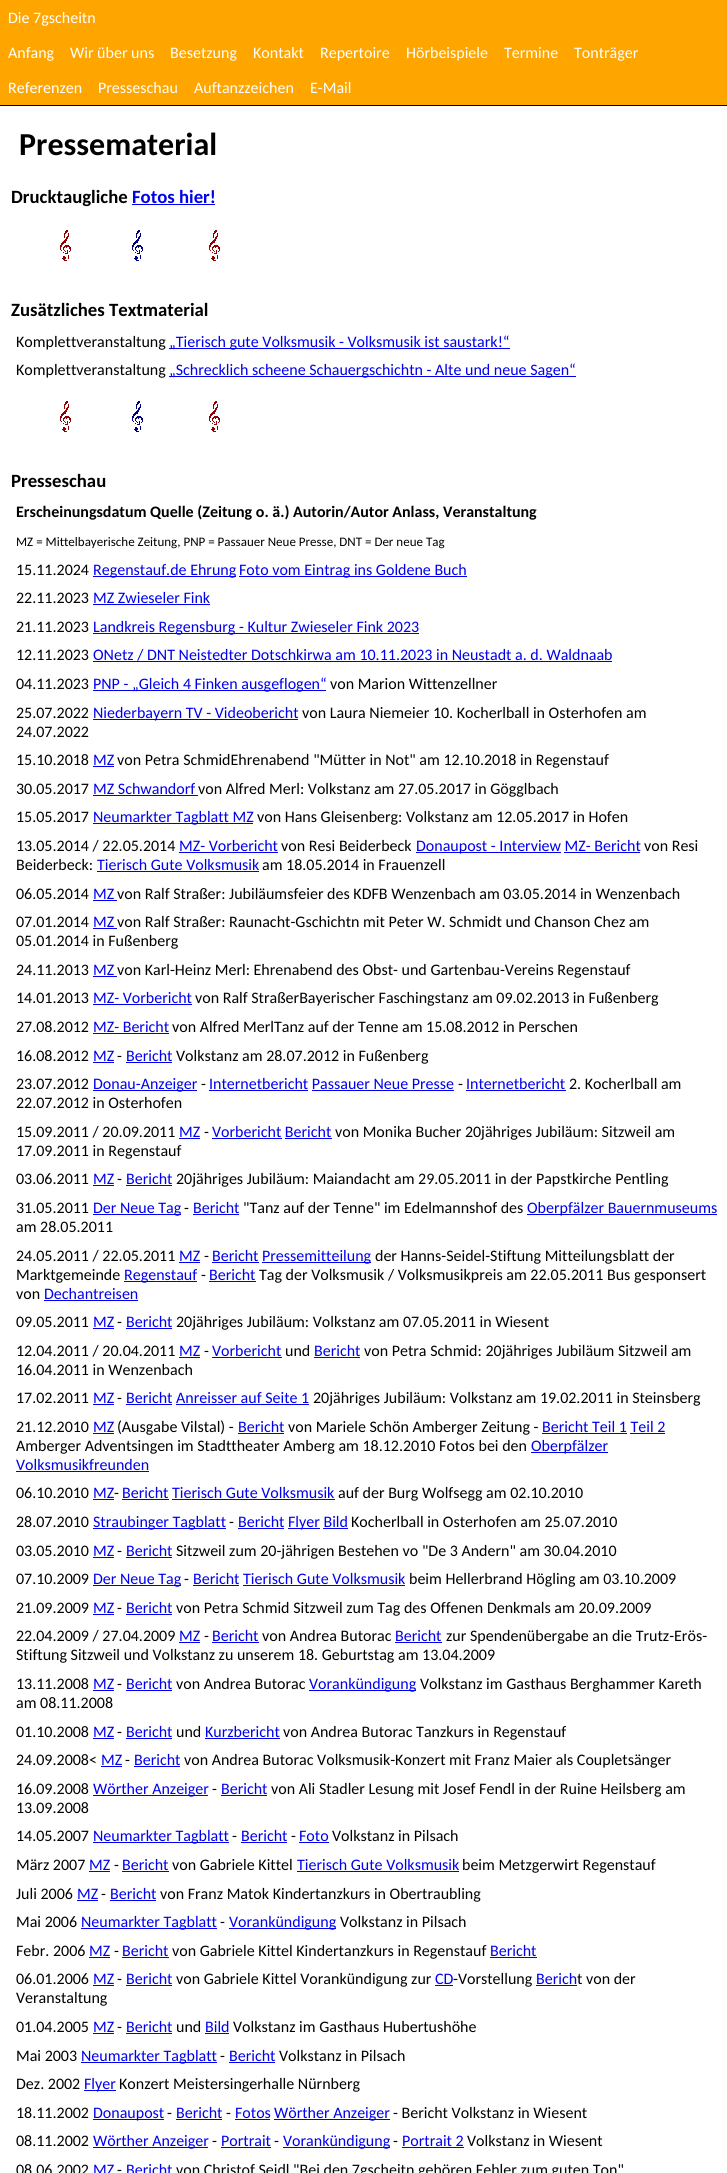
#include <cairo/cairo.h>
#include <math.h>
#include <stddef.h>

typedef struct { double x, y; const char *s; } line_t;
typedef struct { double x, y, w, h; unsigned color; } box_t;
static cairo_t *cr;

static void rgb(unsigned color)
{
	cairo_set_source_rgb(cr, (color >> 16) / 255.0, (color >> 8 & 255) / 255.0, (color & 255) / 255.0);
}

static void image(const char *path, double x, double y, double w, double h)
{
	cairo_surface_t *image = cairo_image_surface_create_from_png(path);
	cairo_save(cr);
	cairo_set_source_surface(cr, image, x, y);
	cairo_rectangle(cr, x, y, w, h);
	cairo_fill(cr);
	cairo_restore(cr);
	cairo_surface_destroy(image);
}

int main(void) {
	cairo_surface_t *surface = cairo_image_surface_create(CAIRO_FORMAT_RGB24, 727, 2173);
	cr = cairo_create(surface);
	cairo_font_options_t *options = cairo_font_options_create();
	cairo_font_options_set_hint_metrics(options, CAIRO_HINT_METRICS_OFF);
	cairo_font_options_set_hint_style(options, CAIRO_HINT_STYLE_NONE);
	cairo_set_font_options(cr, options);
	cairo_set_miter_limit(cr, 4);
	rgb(0xffffff);
	cairo_paint(cr);
	{
		static const box_t items[] = {
			{0, 0, 727, 105, 0xffa500},
			{0, 105, 727, 1, 0x000000},
			{132, 204, 83, 1, 0x0000ee},
		};
		for (size_t i = 0; i < sizeof items / sizeof *items; i++) {
			rgb(items[i].color);
			cairo_rectangle(cr, items[i].x, items[i].y, items[i].w, items[i].h);
			cairo_fill(cr);
		}
	}
	image("img/1.png", 60, 230, 160, 31);
	cairo_rectangle(cr, 169, 348, 341, 1);
	cairo_fill(cr);
	cairo_rectangle(cr, 169, 376, 407, 1);
	cairo_fill(cr);
	image("img/1.png", 60, 401, 160, 31);
	{
		static const box_t items[] = {
			{93, 576, 143, 1, 0x0000ee},
			{239, 576, 228, 1, 0x0000ee},
			{93, 604, 117, 1, 0x0000ee},
			{93, 633, 326, 1, 0x0000ee},
			{93, 661, 519, 1, 0x0000ee},
			{93, 690, 233, 1, 0x0000ee},
			{93, 719, 205, 1, 0x0000ee},
			{93, 766, 21, 1, 0x0000ee},
			{93, 795, 105, 1, 0x0000ee},
			{93, 823, 160, 1, 0x0000ee},
			{179, 852, 99, 1, 0x0000ee},
			{416, 852, 145, 1, 0x0000ee},
			{564, 852, 76, 1, 0x0000ee},
			{97, 871, 162, 1, 0x0000ee},
			{93, 900, 24, 1, 0x0000ee},
			{93, 928, 24, 1, 0x0000ee},
			{93, 976, 24, 1, 0x0000ee},
			{93, 1004, 99, 1, 0x0000ee},
			{93, 1033, 76, 1, 0x0000ee},
			{93, 1062, 21, 1, 0x0000ee},
			{126, 1062, 46, 1, 0x0000ee},
			{93, 1090, 104, 1, 0x0000ee},
			{209, 1090, 99, 1, 0x0000ee},
			{466, 1090, 100, 1, 0x0000ee},
			{312, 1090, 142, 1, 0x0000ee},
			{179, 1138, 21, 1, 0x0000ee},
			{212, 1138, 70, 1, 0x0000ee},
			{285, 1138, 47, 1, 0x0000ee},
			{93, 1185, 21, 1, 0x0000ee},
			{126, 1185, 46, 1, 0x0000ee},
			{93, 1214, 88, 1, 0x0000ee},
			{193, 1214, 46, 1, 0x0000ee},
			{527, 1214, 190, 1, 0x0000ee},
			{179, 1262, 21, 1, 0x0000ee},
			{212, 1262, 47, 1, 0x0000ee},
			{262, 1262, 109, 1, 0x0000ee},
			{124, 1281, 73, 1, 0x0000ee},
			{209, 1281, 47, 1, 0x0000ee},
			{44, 1300, 94, 1, 0x0000ee},
			{93, 1328, 21, 1, 0x0000ee},
			{126, 1328, 46, 1, 0x0000ee},
			{179, 1357, 21, 1, 0x0000ee},
			{212, 1357, 70, 1, 0x0000ee},
			{314, 1357, 46, 1, 0x0000ee},
			{93, 1404, 21, 1, 0x0000ee},
			{126, 1404, 46, 1, 0x0000ee},
			{176, 1404, 133, 1, 0x0000ee},
			{93, 1433, 21, 1, 0x0000ee},
			{238, 1433, 46, 1, 0x0000ee},
			{542, 1433, 85, 1, 0x0000ee},
			{630, 1433, 35, 1, 0x0000ee},
			{531, 1452, 77, 1, 0x0000ee},
			{16, 1471, 133, 1, 0x0000ee},
			{93, 1499, 21, 1, 0x0000ee},
			{122, 1499, 47, 1, 0x0000ee},
			{172, 1499, 163, 1, 0x0000ee},
			{93, 1528, 133, 1, 0x0000ee},
			{238, 1528, 46, 1, 0x0000ee},
			{288, 1528, 32, 1, 0x0000ee},
			{323, 1528, 25, 1, 0x0000ee},
			{93, 1557, 21, 1, 0x0000ee},
			{126, 1557, 46, 1, 0x0000ee},
			{93, 1585, 88, 1, 0x0000ee},
			{193, 1585, 46, 1, 0x0000ee},
			{243, 1585, 162, 1, 0x0000ee},
			{93, 1614, 21, 1, 0x0000ee},
			{126, 1614, 46, 1, 0x0000ee},
			{179, 1642, 21, 1, 0x0000ee},
			{212, 1642, 47, 1, 0x0000ee},
			{395, 1642, 47, 1, 0x0000ee},
			{93, 1690, 21, 1, 0x0000ee},
			{126, 1690, 46, 1, 0x0000ee},
			{309, 1690, 107, 1, 0x0000ee},
			{93, 1738, 21, 1, 0x0000ee},
			{126, 1738, 46, 1, 0x0000ee},
			{205, 1738, 75, 1, 0x0000ee},
			{101, 1766, 21, 1, 0x0000ee},
			{134, 1766, 46, 1, 0x0000ee},
			{93, 1795, 115, 1, 0x0000ee},
			{221, 1795, 46, 1, 0x0000ee},
			{93, 1842, 136, 1, 0x0000ee},
			{241, 1842, 46, 1, 0x0000ee},
			{299, 1842, 30, 1, 0x0000ee},
			{89, 1871, 21, 1, 0x0000ee},
			{122, 1871, 47, 1, 0x0000ee},
			{297, 1871, 162, 1, 0x0000ee},
			{77, 1900, 21, 1, 0x0000ee},
			{110, 1900, 46, 1, 0x0000ee},
			{81, 1928, 136, 1, 0x0000ee},
			{229, 1928, 107, 1, 0x0000ee},
			{89, 1957, 21, 1, 0x0000ee},
			{122, 1957, 47, 1, 0x0000ee},
			{490, 1957, 47, 1, 0x0000ee},
			{93, 1985, 21, 1, 0x0000ee},
			{126, 1985, 46, 1, 0x0000ee},
			{435, 1985, 18, 1, 0x0000ee},
			{536, 1985, 41, 1, 0x0000ee},
			{93, 2033, 21, 1, 0x0000ee},
			{126, 2033, 46, 1, 0x0000ee},
			{205, 2033, 24, 1, 0x0000ee},
			{81, 2062, 136, 1, 0x0000ee},
			{229, 2062, 46, 1, 0x0000ee},
			{84, 2090, 32, 1, 0x0000ee},
			{93, 2119, 71, 1, 0x0000ee},
			{176, 2119, 46, 1, 0x0000ee},
			{235, 2119, 35, 1, 0x0000ee},
			{274, 2119, 116, 1, 0x0000ee},
			{93, 2147, 115, 1, 0x0000ee},
			{221, 2147, 50, 1, 0x0000ee},
			{283, 2147, 107, 1, 0x0000ee},
			{402, 2147, 62, 1, 0x0000ee},
		};
		for (size_t i = 0; i < sizeof items / sizeof *items; i++) {
			rgb(items[i].color);
			cairo_rectangle(cr, items[i].x, items[i].y, items[i].w, items[i].h);
			cairo_fill(cr);
		}
	}
	cairo_select_font_face(cr, "Carlito", CAIRO_FONT_SLANT_NORMAL, CAIRO_FONT_WEIGHT_NORMAL);
	cairo_set_font_size(cr, 16);
	rgb(0xffffff);
	{
		static const line_t items[] = {
			{8, 23, "Die 7gscheitn"},
			{8, 58, "Anfang"},
			{70, 58, "Wir über uns"},
			{170, 58, "Besetzung"},
			{253, 58, "Kontakt"},
			{320, 58, "Repertoire"},
			{406, 58, "Hörbeispiele"},
			{504, 58, "Termine"},
			{574, 58, "Tonträger"},
			{8, 93, "Referenzen"},
			{98, 93, "Presseschau"},
			{194, 93, "Auftanzzeichen"},
			{310, 93, "E-Mail"},
		};
		for (size_t i = 0; i < sizeof items / sizeof *items; i++) {
			cairo_move_to(cr, items[i].x, items[i].y);
			cairo_show_text(cr, items[i].s);
		}
	}
	cairo_select_font_face(cr, "Carlito", CAIRO_FONT_SLANT_NORMAL, CAIRO_FONT_WEIGHT_BOLD);
	cairo_set_font_size(cr, 32);
	rgb(0x000000);
	cairo_move_to(cr, 19, 155);
	cairo_show_text(cr, "Pressematerial");
	cairo_set_font_size(cr, 18.75);
	cairo_move_to(cr, 11, 203);
	cairo_show_text(cr, "Drucktaugliche");
	rgb(0x0000ee);
	cairo_move_to(cr, 132, 203);
	cairo_show_text(cr, "Fotos hier!");
	rgb(0x000000);
	cairo_move_to(cr, 11, 316);
	cairo_show_text(cr, "Zusätzliches Textmaterial");
	cairo_select_font_face(cr, "Carlito", CAIRO_FONT_SLANT_NORMAL, CAIRO_FONT_WEIGHT_NORMAL);
	cairo_set_font_size(cr, 16);
	cairo_move_to(cr, 16, 347);
	cairo_show_text(cr, "Komplettveranstaltung");
	rgb(0x0000ee);
	cairo_move_to(cr, 169, 347);
	cairo_show_text(cr, "„Tierisch gute Volksmusik - Volksmusik ist saustark!“");
	rgb(0x000000);
	cairo_move_to(cr, 16, 375);
	cairo_show_text(cr, "Komplettveranstaltung");
	rgb(0x0000ee);
	cairo_move_to(cr, 169, 375);
	cairo_show_text(cr, "„Schrecklich scheene Schauergschichtn - Alte und neue Sagen“");
	cairo_select_font_face(cr, "Carlito", CAIRO_FONT_SLANT_NORMAL, CAIRO_FONT_WEIGHT_BOLD);
	cairo_set_font_size(cr, 18.75);
	rgb(0x000000);
	cairo_move_to(cr, 11, 487);
	cairo_show_text(cr, "Presseschau");
	cairo_set_font_size(cr, 16);
	cairo_move_to(cr, 16, 517);
	cairo_show_text(cr, "Erscheinungsdatum Quelle (Zeitung o. ä.) Autorin/Autor Anlass, Veranstaltung");
	cairo_select_font_face(cr, "Carlito", CAIRO_FONT_SLANT_NORMAL, CAIRO_FONT_WEIGHT_NORMAL);
	cairo_set_font_size(cr, 13);
	cairo_move_to(cr, 16, 546);
	cairo_show_text(cr, "MZ = Mittelbayerische Zeitung, PNP = Passauer Neue Presse, DNT = Der neue Tag");
	cairo_set_font_size(cr, 16);
	cairo_move_to(cr, 16, 575);
	cairo_show_text(cr, "15.11.2024");
	rgb(0x0000ee);
	cairo_move_to(cr, 93, 575);
	cairo_show_text(cr, "Regenstauf.de Ehrung");
	cairo_move_to(cr, 239, 575);
	cairo_show_text(cr, "Foto vom Eintrag ins Goldene Buch");
	rgb(0x000000);
	cairo_move_to(cr, 16, 603);
	cairo_show_text(cr, "22.11.2023");
	rgb(0x0000ee);
	cairo_move_to(cr, 93, 603);
	cairo_show_text(cr, "MZ Zwieseler Fink");
	rgb(0x000000);
	cairo_move_to(cr, 16, 632);
	cairo_show_text(cr, "21.11.2023");
	rgb(0x0000ee);
	cairo_move_to(cr, 93, 632);
	cairo_show_text(cr, "Landkreis Regensburg - Kultur Zwieseler Fink 2023");
	rgb(0x000000);
	cairo_move_to(cr, 16, 660);
	cairo_show_text(cr, "12.11.2023");
	rgb(0x0000ee);
	cairo_move_to(cr, 93, 660);
	cairo_show_text(cr, "ONetz / DNT Neistedter Dotschkirwa am 10.11.2023 in Neustadt a. d. Waldnaab");
	rgb(0x000000);
	cairo_move_to(cr, 16, 689);
	cairo_show_text(cr, "04.11.2023");
	rgb(0x0000ee);
	cairo_move_to(cr, 93, 689);
	cairo_show_text(cr, "PNP - „Gleich 4 Finken ausgeflogen“");
	rgb(0x000000);
	cairo_move_to(cr, 330, 689);
	cairo_show_text(cr, "von Marion Wittenzellner");
	cairo_move_to(cr, 16, 718);
	cairo_show_text(cr, "25.07.2022");
	rgb(0x0000ee);
	cairo_move_to(cr, 93, 718);
	cairo_show_text(cr, "Niederbayern TV - Videobericht");
	rgb(0x000000);
	{
		static const line_t items[] = {
			{302, 718, "von Laura Niemeier 10. Kocherlball in Osterhofen am"},
			{16, 737, "24.07.2022"},
			{16, 765, "15.10.2018"},
		};
		for (size_t i = 0; i < sizeof items / sizeof *items; i++) {
			cairo_move_to(cr, items[i].x, items[i].y);
			cairo_show_text(cr, items[i].s);
		}
	}
	rgb(0x0000ee);
	cairo_move_to(cr, 93, 765);
	cairo_show_text(cr, "MZ");
	rgb(0x000000);
	cairo_move_to(cr, 117, 765);
	cairo_show_text(cr, "von Petra SchmidEhrenabend \"Mütter in Not\" am 12.10.2018 in Regenstauf");
	cairo_move_to(cr, 16, 794);
	cairo_show_text(cr, "30.05.2017");
	rgb(0x0000ee);
	cairo_move_to(cr, 93, 794);
	cairo_show_text(cr, "MZ Schwandorf");
	rgb(0x000000);
	cairo_move_to(cr, 198, 794);
	cairo_show_text(cr, "von Alfred Merl: Volkstanz am 27.05.2017 in Gögglbach");
	cairo_move_to(cr, 16, 822);
	cairo_show_text(cr, "15.05.2017");
	rgb(0x0000ee);
	cairo_move_to(cr, 93, 822);
	cairo_show_text(cr, "Neumarkter Tagblatt MZ");
	rgb(0x000000);
	cairo_move_to(cr, 257, 822);
	cairo_show_text(cr, "von Hans Gleisenberg: Volkstanz am 12.05.2017 in Hofen");
	cairo_move_to(cr, 16, 851);
	cairo_show_text(cr, "13.05.2014 / 22.05.2014");
	rgb(0x0000ee);
	cairo_move_to(cr, 179, 851);
	cairo_show_text(cr, "MZ- Vorbericht");
	rgb(0x000000);
	cairo_move_to(cr, 281, 851);
	cairo_show_text(cr, "von Resi Beiderbeck");
	rgb(0x0000ee);
	cairo_move_to(cr, 416, 851);
	cairo_show_text(cr, "Donaupost - Interview MZ- Bericht");
	rgb(0x000000);
	cairo_move_to(cr, 644, 851);
	cairo_show_text(cr, "von Resi");
	cairo_move_to(cr, 16, 870);
	cairo_show_text(cr, "Beiderbeck:");
	rgb(0x0000ee);
	cairo_move_to(cr, 97, 870);
	cairo_show_text(cr, "Tierisch Gute Volksmusik");
	rgb(0x000000);
	cairo_move_to(cr, 262, 870);
	cairo_show_text(cr, "am 18.05.2014 in Frauenzell");
	cairo_move_to(cr, 16, 899);
	cairo_show_text(cr, "06.05.2014");
	rgb(0x0000ee);
	cairo_move_to(cr, 93, 899);
	cairo_show_text(cr, "MZ");
	rgb(0x000000);
	cairo_move_to(cr, 117, 899);
	cairo_show_text(cr, "von Ralf Straßer: Jubiläumsfeier des KDFB Wenzenbach am 03.05.2014 in Wenzenbach");
	cairo_move_to(cr, 16, 927);
	cairo_show_text(cr, "07.01.2014");
	rgb(0x0000ee);
	cairo_move_to(cr, 93, 927);
	cairo_show_text(cr, "MZ");
	rgb(0x000000);
	{
		static const line_t items[] = {
			{117, 927, "von Ralf Straßer: Raunacht-Gschichtn mit Peter W. Schmidt und Chanson Chez am"},
			{16, 946, "05.01.2014 in Fußenberg"},
			{16, 975, "24.11.2013"},
		};
		for (size_t i = 0; i < sizeof items / sizeof *items; i++) {
			cairo_move_to(cr, items[i].x, items[i].y);
			cairo_show_text(cr, items[i].s);
		}
	}
	rgb(0x0000ee);
	cairo_move_to(cr, 93, 975);
	cairo_show_text(cr, "MZ");
	rgb(0x000000);
	cairo_move_to(cr, 117, 975);
	cairo_show_text(cr, "von Karl-Heinz Merl: Ehrenabend des Obst- und Gartenbau-Vereins Regenstauf");
	cairo_move_to(cr, 16, 1003);
	cairo_show_text(cr, "14.01.2013");
	rgb(0x0000ee);
	cairo_move_to(cr, 93, 1003);
	cairo_show_text(cr, "MZ- Vorbericht");
	rgb(0x000000);
	cairo_move_to(cr, 195, 1003);
	cairo_show_text(cr, "von Ralf StraßerBayerischer Faschingstanz am 09.02.2013 in Fußenberg");
	cairo_move_to(cr, 16, 1032);
	cairo_show_text(cr, "27.08.2012");
	rgb(0x0000ee);
	cairo_move_to(cr, 93, 1032);
	cairo_show_text(cr, "MZ- Bericht");
	rgb(0x000000);
	cairo_move_to(cr, 172, 1032);
	cairo_show_text(cr, "von Alfred MerlTanz auf der Tenne am 15.08.2012 in Perschen");
	cairo_move_to(cr, 16, 1061);
	cairo_show_text(cr, "16.08.2012");
	rgb(0x0000ee);
	cairo_move_to(cr, 93, 1061);
	cairo_show_text(cr, "MZ");
	rgb(0x000000);
	cairo_move_to(cr, 117, 1061);
	cairo_show_text(cr, "-");
	rgb(0x0000ee);
	cairo_move_to(cr, 126, 1061);
	cairo_show_text(cr, "Bericht");
	rgb(0x000000);
	cairo_move_to(cr, 176, 1061);
	cairo_show_text(cr, "Volkstanz am 28.07.2012 in Fußenberg");
	cairo_move_to(cr, 16, 1089);
	cairo_show_text(cr, "23.07.2012");
	rgb(0x0000ee);
	cairo_move_to(cr, 93, 1089);
	cairo_show_text(cr, "Donau-Anzeiger");
	rgb(0x000000);
	cairo_move_to(cr, 201, 1089);
	cairo_show_text(cr, "-");
	rgb(0x0000ee);
	cairo_move_to(cr, 209, 1089);
	cairo_show_text(cr, "Internetbericht Passauer Neue Presse");
	rgb(0x000000);
	cairo_move_to(cr, 458, 1089);
	cairo_show_text(cr, "-");
	rgb(0x0000ee);
	cairo_move_to(cr, 466, 1089);
	cairo_show_text(cr, "Internetbericht");
	rgb(0x000000);
	{
		static const line_t items[] = {
			{569, 1089, "2. Kocherlball am"},
			{16, 1108, "22.07.2012 in Osterhofen"},
			{16, 1137, "15.09.2011 / 20.09.2011"},
		};
		for (size_t i = 0; i < sizeof items / sizeof *items; i++) {
			cairo_move_to(cr, items[i].x, items[i].y);
			cairo_show_text(cr, items[i].s);
		}
	}
	rgb(0x0000ee);
	cairo_move_to(cr, 179, 1137);
	cairo_show_text(cr, "MZ");
	rgb(0x000000);
	cairo_move_to(cr, 204, 1137);
	cairo_show_text(cr, "-");
	rgb(0x0000ee);
	cairo_move_to(cr, 212, 1137);
	cairo_show_text(cr, "Vorbericht Bericht");
	rgb(0x000000);
	{
		static const line_t items[] = {
			{335, 1137, "von Monika Bucher 20jähriges Jubiläum: Sitzweil am"},
			{16, 1156, "17.09.2011 in Regenstauf"},
			{16, 1184, "03.06.2011"},
		};
		for (size_t i = 0; i < sizeof items / sizeof *items; i++) {
			cairo_move_to(cr, items[i].x, items[i].y);
			cairo_show_text(cr, items[i].s);
		}
	}
	rgb(0x0000ee);
	cairo_move_to(cr, 93, 1184);
	cairo_show_text(cr, "MZ");
	rgb(0x000000);
	cairo_move_to(cr, 117, 1184);
	cairo_show_text(cr, "-");
	rgb(0x0000ee);
	cairo_move_to(cr, 126, 1184);
	cairo_show_text(cr, "Bericht");
	rgb(0x000000);
	cairo_move_to(cr, 176, 1184);
	cairo_show_text(cr, "20jähriges Jubiläum: Maiandacht am 29.05.2011 in der Papstkirche Pentling");
	cairo_move_to(cr, 16, 1213);
	cairo_show_text(cr, "31.05.2011");
	rgb(0x0000ee);
	cairo_move_to(cr, 93, 1213);
	cairo_show_text(cr, "Der Neue Tag");
	rgb(0x000000);
	cairo_move_to(cr, 184, 1213);
	cairo_show_text(cr, "-");
	rgb(0x0000ee);
	cairo_move_to(cr, 193, 1213);
	cairo_show_text(cr, "Bericht");
	rgb(0x000000);
	cairo_move_to(cr, 243, 1213);
	cairo_show_text(cr, "\"Tanz auf der Tenne\" im Edelmannshof des");
	rgb(0x0000ee);
	cairo_move_to(cr, 527, 1213);
	cairo_show_text(cr, "Oberpfälzer Bauernmuseums");
	rgb(0x000000);
	cairo_move_to(cr, 16, 1232);
	cairo_show_text(cr, "am 28.05.2011");
	cairo_move_to(cr, 16, 1261);
	cairo_show_text(cr, "24.05.2011 / 22.05.2011");
	rgb(0x0000ee);
	cairo_move_to(cr, 179, 1261);
	cairo_show_text(cr, "MZ");
	rgb(0x000000);
	cairo_move_to(cr, 204, 1261);
	cairo_show_text(cr, "-");
	rgb(0x0000ee);
	cairo_move_to(cr, 212, 1261);
	cairo_show_text(cr, "Bericht");
	cairo_move_to(cr, 262, 1261);
	cairo_show_text(cr, "Pressemitteilung");
	rgb(0x000000);
	cairo_move_to(cr, 375, 1261);
	cairo_show_text(cr, "der Hanns-Seidel-Stiftung Mitteilungsblatt der");
	cairo_move_to(cr, 16, 1280);
	cairo_show_text(cr, "Marktgemeinde");
	rgb(0x0000ee);
	cairo_move_to(cr, 124, 1280);
	cairo_show_text(cr, "Regenstauf");
	rgb(0x000000);
	cairo_move_to(cr, 201, 1280);
	cairo_show_text(cr, "-");
	rgb(0x0000ee);
	cairo_move_to(cr, 209, 1280);
	cairo_show_text(cr, "Bericht");
	rgb(0x000000);
	cairo_move_to(cr, 259, 1280);
	cairo_show_text(cr, "Tag der Volksmusik / Volksmusikpreis am 22.05.2011 Bus gesponsert");
	cairo_move_to(cr, 16, 1299);
	cairo_show_text(cr, "von");
	rgb(0x0000ee);
	cairo_move_to(cr, 44, 1299);
	cairo_show_text(cr, "Dechantreisen");
	rgb(0x000000);
	cairo_move_to(cr, 16, 1327);
	cairo_show_text(cr, "09.05.2011");
	rgb(0x0000ee);
	cairo_move_to(cr, 93, 1327);
	cairo_show_text(cr, "MZ");
	rgb(0x000000);
	cairo_move_to(cr, 117, 1327);
	cairo_show_text(cr, "-");
	rgb(0x0000ee);
	cairo_move_to(cr, 126, 1327);
	cairo_show_text(cr, "Bericht");
	rgb(0x000000);
	cairo_move_to(cr, 176, 1327);
	cairo_show_text(cr, "20jähriges Jubiläum: Volkstanz am 07.05.2011 in Wiesent");
	cairo_move_to(cr, 16, 1356);
	cairo_show_text(cr, "12.04.2011 / 20.04.2011");
	rgb(0x0000ee);
	cairo_move_to(cr, 179, 1356);
	cairo_show_text(cr, "MZ");
	rgb(0x000000);
	cairo_move_to(cr, 204, 1356);
	cairo_show_text(cr, "-");
	rgb(0x0000ee);
	cairo_move_to(cr, 212, 1356);
	cairo_show_text(cr, "Vorbericht");
	rgb(0x000000);
	cairo_move_to(cr, 285, 1356);
	cairo_show_text(cr, "und");
	rgb(0x0000ee);
	cairo_move_to(cr, 314, 1356);
	cairo_show_text(cr, "Bericht");
	rgb(0x000000);
	{
		static const line_t items[] = {
			{364, 1356, "von Petra Schmid: 20jähriges Jubiläum Sitzweil am"},
			{16, 1375, "16.04.2011 in Wenzenbach"},
			{16, 1403, "17.02.2011"},
		};
		for (size_t i = 0; i < sizeof items / sizeof *items; i++) {
			cairo_move_to(cr, items[i].x, items[i].y);
			cairo_show_text(cr, items[i].s);
		}
	}
	rgb(0x0000ee);
	cairo_move_to(cr, 93, 1403);
	cairo_show_text(cr, "MZ");
	rgb(0x000000);
	cairo_move_to(cr, 117, 1403);
	cairo_show_text(cr, "-");
	rgb(0x0000ee);
	cairo_move_to(cr, 126, 1403);
	cairo_show_text(cr, "Bericht Anreisser auf Seite 1");
	rgb(0x000000);
	cairo_move_to(cr, 313, 1403);
	cairo_show_text(cr, "20jähriges Jubiläum: Volkstanz am 19.02.2011 in Steinsberg");
	cairo_move_to(cr, 16, 1432);
	cairo_show_text(cr, "21.12.2010");
	rgb(0x0000ee);
	cairo_move_to(cr, 93, 1432);
	cairo_show_text(cr, "MZ");
	rgb(0x000000);
	cairo_move_to(cr, 117, 1432);
	cairo_show_text(cr, "(Ausgabe Vilstal) -");
	rgb(0x0000ee);
	cairo_move_to(cr, 238, 1432);
	cairo_show_text(cr, "Bericht");
	rgb(0x000000);
	cairo_move_to(cr, 288, 1432);
	cairo_show_text(cr, "von Mariele Schön Amberger Zeitung -");
	rgb(0x0000ee);
	cairo_move_to(cr, 542, 1432);
	cairo_show_text(cr, "Bericht Teil 1 Teil 2");
	rgb(0x000000);
	cairo_move_to(cr, 16, 1451);
	cairo_show_text(cr, "Amberger Adventsingen im Stadttheater Amberg am 18.12.2010 Fotos bei den");
	rgb(0x0000ee);
	cairo_move_to(cr, 531, 1451);
	cairo_show_text(cr, "Oberpfälzer");
	cairo_move_to(cr, 16, 1470);
	cairo_show_text(cr, "Volksmusikfreunden");
	rgb(0x000000);
	cairo_move_to(cr, 16, 1498);
	cairo_show_text(cr, "06.10.2010");
	rgb(0x0000ee);
	cairo_move_to(cr, 93, 1498);
	cairo_show_text(cr, "MZ");
	rgb(0x000000);
	cairo_move_to(cr, 114, 1498);
	cairo_show_text(cr, "-");
	rgb(0x0000ee);
	cairo_move_to(cr, 122, 1498);
	cairo_show_text(cr, "Bericht Tierisch Gute Volksmusik");
	rgb(0x000000);
	cairo_move_to(cr, 338, 1498);
	cairo_show_text(cr, "auf der Burg Wolfsegg am 02.10.2010");
	cairo_move_to(cr, 16, 1527);
	cairo_show_text(cr, "28.07.2010");
	rgb(0x0000ee);
	cairo_move_to(cr, 93, 1527);
	cairo_show_text(cr, "Straubinger Tagblatt");
	rgb(0x000000);
	cairo_move_to(cr, 229, 1527);
	cairo_show_text(cr, "-");
	rgb(0x0000ee);
	cairo_move_to(cr, 238, 1527);
	cairo_show_text(cr, "Bericht");
	cairo_move_to(cr, 288, 1527);
	cairo_show_text(cr, "Flyer Bild");
	rgb(0x000000);
	cairo_move_to(cr, 351, 1527);
	cairo_show_text(cr, "Kocherlball in Osterhofen am 25.07.2010");
	cairo_move_to(cr, 16, 1556);
	cairo_show_text(cr, "03.05.2010");
	rgb(0x0000ee);
	cairo_move_to(cr, 93, 1556);
	cairo_show_text(cr, "MZ");
	rgb(0x000000);
	cairo_move_to(cr, 117, 1556);
	cairo_show_text(cr, "-");
	rgb(0x0000ee);
	cairo_move_to(cr, 126, 1556);
	cairo_show_text(cr, "Bericht");
	rgb(0x000000);
	cairo_move_to(cr, 176, 1556);
	cairo_show_text(cr, "Sitzweil zum 20-jährigen Bestehen vo \"De 3 Andern\" am 30.04.2010");
	cairo_move_to(cr, 16, 1584);
	cairo_show_text(cr, "07.10.2009");
	rgb(0x0000ee);
	cairo_move_to(cr, 93, 1584);
	cairo_show_text(cr, "Der Neue Tag");
	rgb(0x000000);
	cairo_move_to(cr, 184, 1584);
	cairo_show_text(cr, "-");
	rgb(0x0000ee);
	cairo_move_to(cr, 193, 1584);
	cairo_show_text(cr, "Bericht Tierisch Gute Volksmusik");
	rgb(0x000000);
	cairo_move_to(cr, 409, 1584);
	cairo_show_text(cr, "beim Hellerbrand Högling am 03.10.2009");
	cairo_move_to(cr, 16, 1613);
	cairo_show_text(cr, "21.09.2009");
	rgb(0x0000ee);
	cairo_move_to(cr, 93, 1613);
	cairo_show_text(cr, "MZ");
	rgb(0x000000);
	cairo_move_to(cr, 117, 1613);
	cairo_show_text(cr, "-");
	rgb(0x0000ee);
	cairo_move_to(cr, 126, 1613);
	cairo_show_text(cr, "Bericht");
	rgb(0x000000);
	cairo_move_to(cr, 176, 1613);
	cairo_show_text(cr, "von Petra Schmid Sitzweil zum Tag des Offenen Denkmals am 20.09.2009");
	cairo_move_to(cr, 16, 1641);
	cairo_show_text(cr, "22.04.2009 / 27.04.2009");
	rgb(0x0000ee);
	cairo_move_to(cr, 179, 1641);
	cairo_show_text(cr, "MZ");
	rgb(0x000000);
	cairo_move_to(cr, 204, 1641);
	cairo_show_text(cr, "-");
	rgb(0x0000ee);
	cairo_move_to(cr, 212, 1641);
	cairo_show_text(cr, "Bericht");
	rgb(0x000000);
	cairo_move_to(cr, 262, 1641);
	cairo_show_text(cr, "von Andrea Butorac");
	rgb(0x0000ee);
	cairo_move_to(cr, 395, 1641);
	cairo_show_text(cr, "Bericht");
	rgb(0x000000);
	{
		static const line_t items[] = {
			{446, 1641, "zur Spendenübergabe an die Trutz-Erös-"},
			{16, 1660, "Stiftung Sitzweil und Volkstanz zu unserem 18. Geburtstag am 13.04.2009"},
			{16, 1689, "13.11.2008"},
		};
		for (size_t i = 0; i < sizeof items / sizeof *items; i++) {
			cairo_move_to(cr, items[i].x, items[i].y);
			cairo_show_text(cr, items[i].s);
		}
	}
	rgb(0x0000ee);
	cairo_move_to(cr, 93, 1689);
	cairo_show_text(cr, "MZ");
	rgb(0x000000);
	cairo_move_to(cr, 117, 1689);
	cairo_show_text(cr, "-");
	rgb(0x0000ee);
	cairo_move_to(cr, 126, 1689);
	cairo_show_text(cr, "Bericht");
	rgb(0x000000);
	cairo_move_to(cr, 176, 1689);
	cairo_show_text(cr, "von Andrea Butorac");
	rgb(0x0000ee);
	cairo_move_to(cr, 309, 1689);
	cairo_show_text(cr, "Vorankündigung");
	rgb(0x000000);
	{
		static const line_t items[] = {
			{420, 1689, "Volkstanz im Gasthaus Berghammer Kareth"},
			{16, 1708, "am 08.11.2008"},
			{16, 1737, "01.10.2008"},
		};
		for (size_t i = 0; i < sizeof items / sizeof *items; i++) {
			cairo_move_to(cr, items[i].x, items[i].y);
			cairo_show_text(cr, items[i].s);
		}
	}
	rgb(0x0000ee);
	cairo_move_to(cr, 93, 1737);
	cairo_show_text(cr, "MZ");
	rgb(0x000000);
	cairo_move_to(cr, 117, 1737);
	cairo_show_text(cr, "-");
	rgb(0x0000ee);
	cairo_move_to(cr, 126, 1737);
	cairo_show_text(cr, "Bericht");
	rgb(0x000000);
	cairo_move_to(cr, 176, 1737);
	cairo_show_text(cr, "und");
	rgb(0x0000ee);
	cairo_move_to(cr, 205, 1737);
	cairo_show_text(cr, "Kurzbericht");
	rgb(0x000000);
	cairo_move_to(cr, 283, 1737);
	cairo_show_text(cr, "von Andrea Butorac Tanzkurs in Regenstauf");
	cairo_move_to(cr, 16, 1765);
	cairo_show_text(cr, "24.09.2008<");
	rgb(0x0000ee);
	cairo_move_to(cr, 101, 1765);
	cairo_show_text(cr, "MZ");
	rgb(0x000000);
	cairo_move_to(cr, 125, 1765);
	cairo_show_text(cr, "-");
	rgb(0x0000ee);
	cairo_move_to(cr, 134, 1765);
	cairo_show_text(cr, "Bericht");
	rgb(0x000000);
	cairo_move_to(cr, 184, 1765);
	cairo_show_text(cr, "von Andrea Butorac Volksmusik-Konzert mit Franz Maier als Coupletsänger");
	cairo_move_to(cr, 16, 1794);
	cairo_show_text(cr, "16.09.2008");
	rgb(0x0000ee);
	cairo_move_to(cr, 93, 1794);
	cairo_show_text(cr, "Wörther Anzeiger");
	rgb(0x000000);
	cairo_move_to(cr, 212, 1794);
	cairo_show_text(cr, "-");
	rgb(0x0000ee);
	cairo_move_to(cr, 221, 1794);
	cairo_show_text(cr, "Bericht");
	rgb(0x000000);
	{
		static const line_t items[] = {
			{271, 1794, "von Ali Stadler Lesung mit Josef Fendl in der Ruine Heilsberg am"},
			{16, 1813, "13.09.2008"},
			{16, 1841, "14.05.2007"},
		};
		for (size_t i = 0; i < sizeof items / sizeof *items; i++) {
			cairo_move_to(cr, items[i].x, items[i].y);
			cairo_show_text(cr, items[i].s);
		}
	}
	rgb(0x0000ee);
	cairo_move_to(cr, 93, 1841);
	cairo_show_text(cr, "Neumarkter Tagblatt");
	rgb(0x000000);
	cairo_move_to(cr, 232, 1841);
	cairo_show_text(cr, "-");
	rgb(0x0000ee);
	cairo_move_to(cr, 241, 1841);
	cairo_show_text(cr, "Bericht");
	rgb(0x000000);
	cairo_move_to(cr, 291, 1841);
	cairo_show_text(cr, "-");
	rgb(0x0000ee);
	cairo_move_to(cr, 299, 1841);
	cairo_show_text(cr, "Foto");
	rgb(0x000000);
	cairo_move_to(cr, 332, 1841);
	cairo_show_text(cr, "Volkstanz in Pilsach");
	cairo_move_to(cr, 16, 1870);
	cairo_show_text(cr, "März 2007");
	rgb(0x0000ee);
	cairo_move_to(cr, 89, 1870);
	cairo_show_text(cr, "MZ");
	rgb(0x000000);
	cairo_move_to(cr, 114, 1870);
	cairo_show_text(cr, "-");
	rgb(0x0000ee);
	cairo_move_to(cr, 122, 1870);
	cairo_show_text(cr, "Bericht");
	rgb(0x000000);
	cairo_move_to(cr, 172, 1870);
	cairo_show_text(cr, "von Gabriele Kittel");
	rgb(0x0000ee);
	cairo_move_to(cr, 297, 1870);
	cairo_show_text(cr, "Tierisch Gute Volksmusik");
	rgb(0x000000);
	cairo_move_to(cr, 462, 1870);
	cairo_show_text(cr, "beim Metzgerwirt Regenstauf");
	cairo_move_to(cr, 16, 1899);
	cairo_show_text(cr, "Juli 2006");
	rgb(0x0000ee);
	cairo_move_to(cr, 77, 1899);
	cairo_show_text(cr, "MZ");
	rgb(0x000000);
	cairo_move_to(cr, 101, 1899);
	cairo_show_text(cr, "-");
	rgb(0x0000ee);
	cairo_move_to(cr, 110, 1899);
	cairo_show_text(cr, "Bericht");
	rgb(0x000000);
	cairo_move_to(cr, 160, 1899);
	cairo_show_text(cr, "von Franz Matok Kindertanzkurs in Obertraubling");
	cairo_move_to(cr, 16, 1927);
	cairo_show_text(cr, "Mai 2006");
	rgb(0x0000ee);
	cairo_move_to(cr, 81, 1927);
	cairo_show_text(cr, "Neumarkter Tagblatt");
	rgb(0x000000);
	cairo_move_to(cr, 220, 1927);
	cairo_show_text(cr, "-");
	rgb(0x0000ee);
	cairo_move_to(cr, 229, 1927);
	cairo_show_text(cr, "Vorankündigung");
	rgb(0x000000);
	cairo_move_to(cr, 340, 1927);
	cairo_show_text(cr, "Volkstanz in Pilsach");
	cairo_move_to(cr, 16, 1956);
	cairo_show_text(cr, "Febr. 2006");
	rgb(0x0000ee);
	cairo_move_to(cr, 89, 1956);
	cairo_show_text(cr, "MZ");
	rgb(0x000000);
	cairo_move_to(cr, 114, 1956);
	cairo_show_text(cr, "-");
	rgb(0x0000ee);
	cairo_move_to(cr, 122, 1956);
	cairo_show_text(cr, "Bericht");
	rgb(0x000000);
	cairo_move_to(cr, 172, 1956);
	cairo_show_text(cr, "von Gabriele Kittel Kindertanzkurs in Regenstauf");
	rgb(0x0000ee);
	cairo_move_to(cr, 490, 1956);
	cairo_show_text(cr, "Bericht");
	rgb(0x000000);
	cairo_move_to(cr, 16, 1984);
	cairo_show_text(cr, "06.01.2006");
	rgb(0x0000ee);
	cairo_move_to(cr, 93, 1984);
	cairo_show_text(cr, "MZ");
	rgb(0x000000);
	cairo_move_to(cr, 117, 1984);
	cairo_show_text(cr, "-");
	rgb(0x0000ee);
	cairo_move_to(cr, 126, 1984);
	cairo_show_text(cr, "Bericht");
	rgb(0x000000);
	cairo_move_to(cr, 176, 1984);
	cairo_show_text(cr, "von Gabriele Kittel Vorankündigung zur");
	rgb(0x0000ee);
	cairo_move_to(cr, 435, 1984);
	cairo_show_text(cr, "CD");
	rgb(0x000000);
	cairo_move_to(cr, 453, 1984);
	cairo_show_text(cr, "-Vorstellung");
	rgb(0x0000ee);
	cairo_move_to(cr, 536, 1984);
	cairo_show_text(cr, "Berich");
	rgb(0x000000);
	{
		static const line_t items[] = {
			{577, 1984, "t von der"},
			{16, 2003, "Veranstaltung"},
			{16, 2032, "01.04.2005"},
		};
		for (size_t i = 0; i < sizeof items / sizeof *items; i++) {
			cairo_move_to(cr, items[i].x, items[i].y);
			cairo_show_text(cr, items[i].s);
		}
	}
	rgb(0x0000ee);
	cairo_move_to(cr, 93, 2032);
	cairo_show_text(cr, "MZ");
	rgb(0x000000);
	cairo_move_to(cr, 117, 2032);
	cairo_show_text(cr, "-");
	rgb(0x0000ee);
	cairo_move_to(cr, 126, 2032);
	cairo_show_text(cr, "Bericht");
	rgb(0x000000);
	cairo_move_to(cr, 176, 2032);
	cairo_show_text(cr, "und");
	rgb(0x0000ee);
	cairo_move_to(cr, 205, 2032);
	cairo_show_text(cr, "Bild");
	rgb(0x000000);
	cairo_move_to(cr, 233, 2032);
	cairo_show_text(cr, "Volkstanz im Gasthaus Hubertushöhe");
	cairo_move_to(cr, 16, 2061);
	cairo_show_text(cr, "Mai 2003");
	rgb(0x0000ee);
	cairo_move_to(cr, 81, 2061);
	cairo_show_text(cr, "Neumarkter Tagblatt");
	rgb(0x000000);
	cairo_move_to(cr, 220, 2061);
	cairo_show_text(cr, "-");
	rgb(0x0000ee);
	cairo_move_to(cr, 229, 2061);
	cairo_show_text(cr, "Bericht");
	rgb(0x000000);
	cairo_move_to(cr, 279, 2061);
	cairo_show_text(cr, "Volkstanz in Pilsach");
	cairo_move_to(cr, 16, 2089);
	cairo_show_text(cr, "Dez. 2002");
	rgb(0x0000ee);
	cairo_move_to(cr, 84, 2089);
	cairo_show_text(cr, "Flyer");
	rgb(0x000000);
	cairo_move_to(cr, 119, 2089);
	cairo_show_text(cr, "Konzert Meistersingerhalle Nürnberg");
	cairo_move_to(cr, 16, 2118);
	cairo_show_text(cr, "18.11.2002");
	rgb(0x0000ee);
	cairo_move_to(cr, 93, 2118);
	cairo_show_text(cr, "Donaupost");
	rgb(0x000000);
	cairo_move_to(cr, 167, 2118);
	cairo_show_text(cr, "-");
	rgb(0x0000ee);
	cairo_move_to(cr, 176, 2118);
	cairo_show_text(cr, "Bericht");
	rgb(0x000000);
	cairo_move_to(cr, 226, 2118);
	cairo_show_text(cr, "-");
	rgb(0x0000ee);
	cairo_move_to(cr, 235, 2118);
	cairo_show_text(cr, "Fotos");
	cairo_move_to(cr, 274, 2118);
	cairo_show_text(cr, "Wörther Anzeiger");
	rgb(0x000000);
	cairo_move_to(cr, 393, 2118);
	cairo_show_text(cr, "- Bericht Volkstanz in Wiesent");
	cairo_move_to(cr, 16, 2146);
	cairo_show_text(cr, "08.11.2002");
	rgb(0x0000ee);
	cairo_move_to(cr, 93, 2146);
	cairo_show_text(cr, "Wörther Anzeiger");
	rgb(0x000000);
	cairo_move_to(cr, 212, 2146);
	cairo_show_text(cr, "-");
	rgb(0x0000ee);
	cairo_move_to(cr, 221, 2146);
	cairo_show_text(cr, "Portrait");
	rgb(0x000000);
	cairo_move_to(cr, 274, 2146);
	cairo_show_text(cr, "-");
	rgb(0x0000ee);
	cairo_move_to(cr, 283, 2146);
	cairo_show_text(cr, "Vorankündigung");
	rgb(0x000000);
	cairo_move_to(cr, 393, 2146);
	cairo_show_text(cr, "-");
	rgb(0x0000ee);
	cairo_move_to(cr, 402, 2146);
	cairo_show_text(cr, "Portrait 2");
	rgb(0x000000);
	cairo_move_to(cr, 467, 2146);
	cairo_show_text(cr, "Volkstanz in Wiesent");
	cairo_move_to(cr, 16, 2175);
	cairo_show_text(cr, "08.06.2002");
	rgb(0x0000ee);
	cairo_move_to(cr, 93, 2175);
	cairo_show_text(cr, "MZ");
	rgb(0x000000);
	cairo_move_to(cr, 117, 2175);
	cairo_show_text(cr, "-");
	rgb(0x0000ee);
	cairo_move_to(cr, 126, 2175);
	cairo_show_text(cr, "Bericht");
	rgb(0x000000);
	cairo_move_to(cr, 176, 2175);
	cairo_show_text(cr, "von Christof Seidl \"Bei den 7gscheitn gehören Fehler zum guten Ton\"");
	cairo_surface_write_to_png(surface, "page.png");
	cairo_font_options_destroy(options);
	cairo_destroy(cr);
	cairo_surface_destroy(surface);
	return 0;
}
